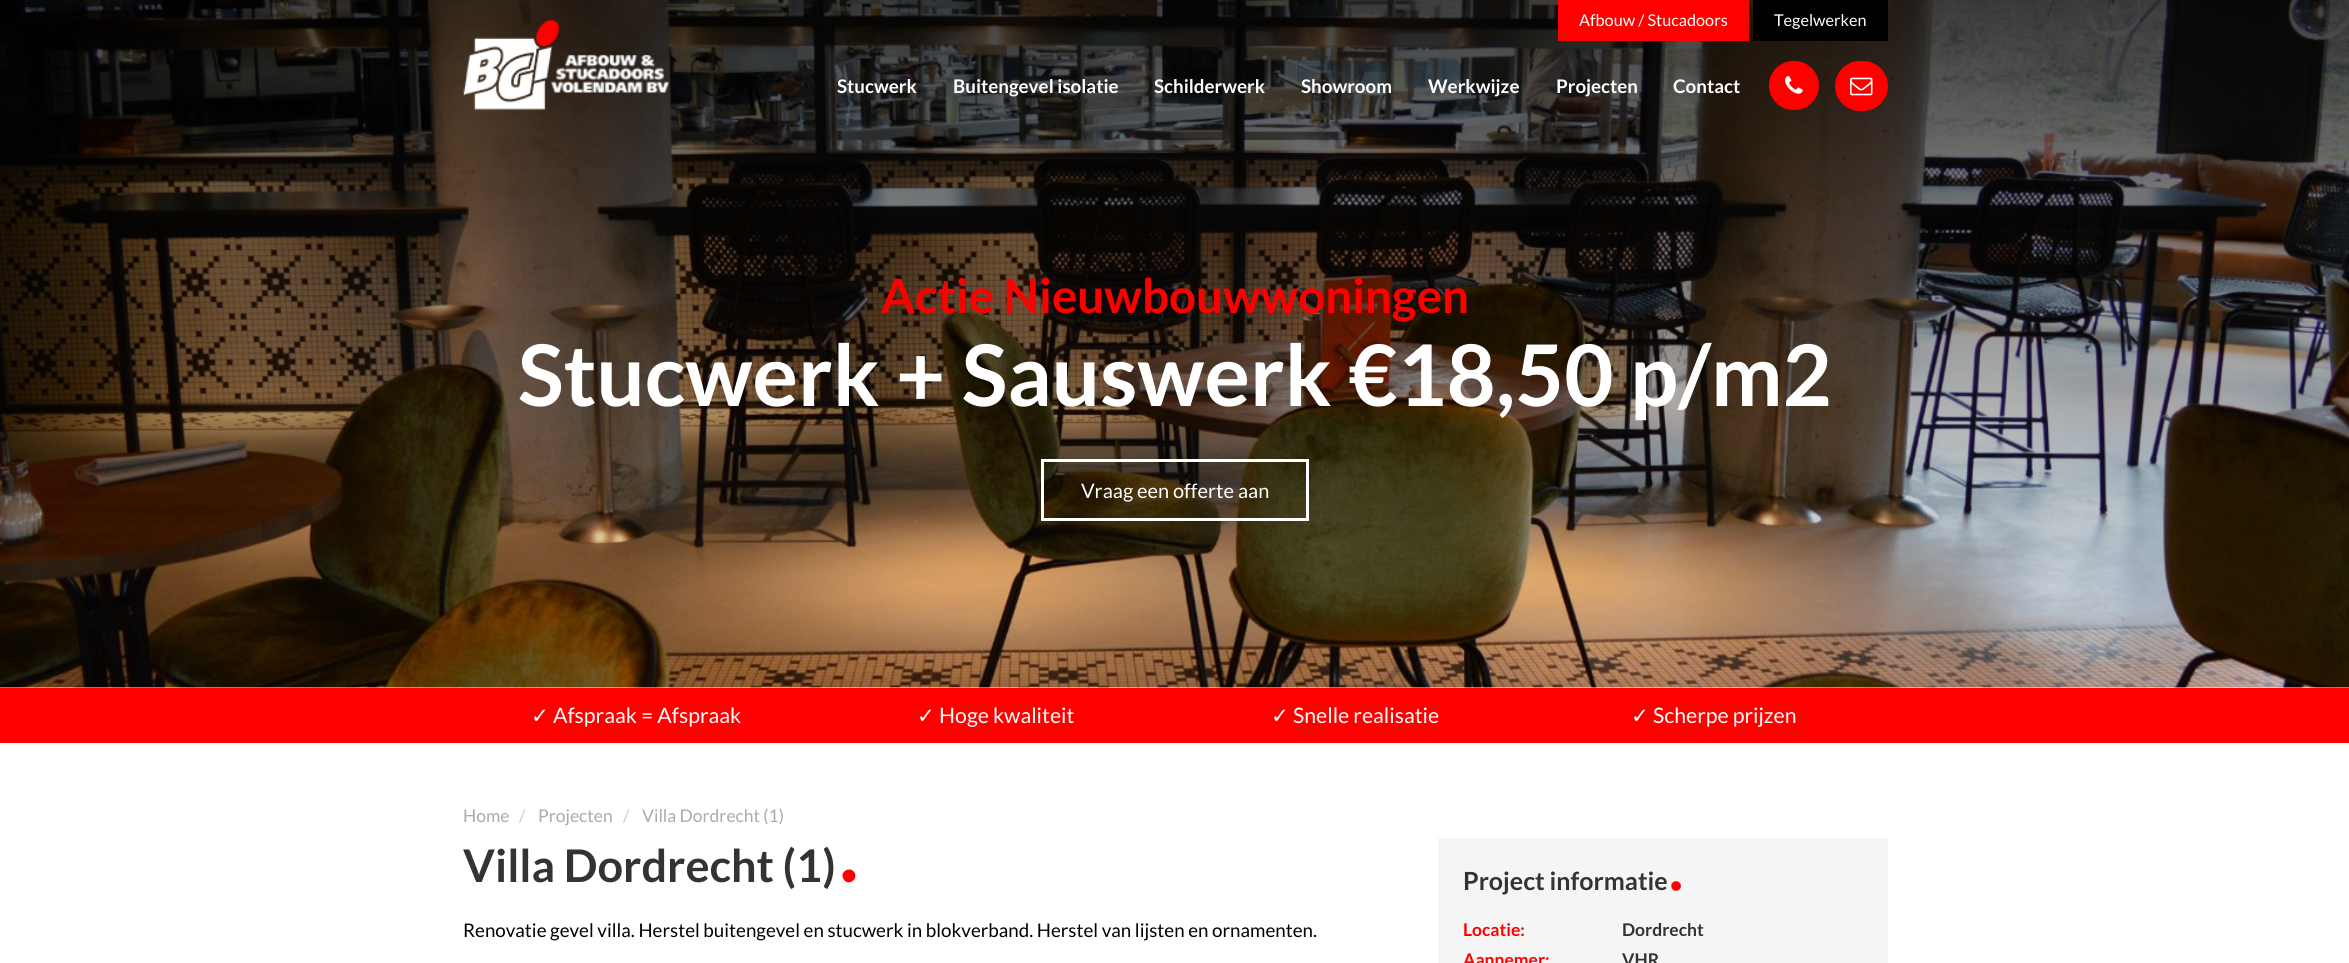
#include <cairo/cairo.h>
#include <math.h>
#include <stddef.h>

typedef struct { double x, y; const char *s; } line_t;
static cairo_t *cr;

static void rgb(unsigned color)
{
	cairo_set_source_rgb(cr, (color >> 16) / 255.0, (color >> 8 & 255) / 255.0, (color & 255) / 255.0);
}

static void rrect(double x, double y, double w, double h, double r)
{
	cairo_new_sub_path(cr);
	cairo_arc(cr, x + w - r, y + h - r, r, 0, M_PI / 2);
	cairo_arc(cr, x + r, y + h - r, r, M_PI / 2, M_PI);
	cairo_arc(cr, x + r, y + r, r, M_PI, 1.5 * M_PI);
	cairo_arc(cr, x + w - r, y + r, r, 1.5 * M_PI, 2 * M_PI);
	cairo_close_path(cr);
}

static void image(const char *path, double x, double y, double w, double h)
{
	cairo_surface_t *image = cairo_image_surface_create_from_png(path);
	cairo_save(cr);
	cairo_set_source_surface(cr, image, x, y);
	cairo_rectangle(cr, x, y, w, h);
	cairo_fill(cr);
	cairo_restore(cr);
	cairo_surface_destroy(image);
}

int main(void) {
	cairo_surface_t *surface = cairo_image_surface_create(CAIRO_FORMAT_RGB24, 2349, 963);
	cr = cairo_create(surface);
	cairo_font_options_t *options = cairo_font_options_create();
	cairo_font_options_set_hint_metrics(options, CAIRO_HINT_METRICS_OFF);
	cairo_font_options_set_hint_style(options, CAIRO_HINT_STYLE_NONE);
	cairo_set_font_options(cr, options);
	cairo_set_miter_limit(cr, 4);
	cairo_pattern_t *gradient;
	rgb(0xffffff);
	cairo_paint(cr);
	image("img/4.png", 0, 0, 2349, 688);
	gradient = cairo_pattern_create_linear(1175, 0, 1175, 688);
	cairo_pattern_add_color_stop_rgba(gradient, 0, 0, 0, 0, 0.75);
	cairo_pattern_add_color_stop_rgba(gradient, 1, 0, 0, 0, 0);
	cairo_set_source(cr, gradient);
	cairo_pattern_destroy(gradient);
	cairo_rectangle(cr, 0, 0, 2349, 668);
	cairo_fill(cr);
	image("img/1.png", 463, 19, 206, 92);
	rgb(0xff0000);
	cairo_rectangle(cr, 1558, 0, 191, 41);
	cairo_fill(cr);
	rgb(0x000000);
	cairo_rectangle(cr, 1753, 0, 135, 41);
	cairo_fill(cr);
	rgb(0xff0000);
	rrect(1769, 61, 50, 49, 24.5);
	cairo_fill(cr);
	image("img/2.png", 1785, 76, 18, 18);
	rrect(1835, 61, 53, 50, 25);
	cairo_fill(cr);
	image("img/3.png", 1850, 77, 23, 19);
	cairo_rectangle(cr, 1042.5, 460.5, 265, 59);
	rgb(0xffffff);
	cairo_set_line_width(cr, 3);
	cairo_stroke(cr);
	rgb(0xff0000);
	cairo_rectangle(cr, 0, 688, 2349, 55);
	cairo_fill(cr);
	cairo_new_path(cr);
	cairo_move_to(cr, 854.5, 872.5);
	cairo_curve_to(cr, 858.5, 880, 847.5, 886.5, 843.5, 879);
	cairo_curve_to(cr, 839, 872, 850, 865.5, 854.5, 872.5);
	cairo_close_path(cr);
	cairo_fill(cr);
	rgb(0xf5f5f5);
	cairo_rectangle(cr, 1438, 838, 450, 125);
	cairo_fill(cr);
	image("img/5.png", 1671, 881, 10, 10);
	cairo_select_font_face(cr, "Lato", CAIRO_FONT_SLANT_NORMAL, CAIRO_FONT_WEIGHT_NORMAL);
	cairo_set_font_size(cr, 16.25);
	rgb(0xffffff);
	cairo_move_to(cr, 1579, 26);
	cairo_show_text(cr, "Afbouw / Stucadoors");
	cairo_move_to(cr, 1774, 26);
	cairo_show_text(cr, "Tegelwerken");
	cairo_select_font_face(cr, "Lato", CAIRO_FONT_SLANT_NORMAL, CAIRO_FONT_WEIGHT_BOLD);
	cairo_set_font_size(cr, 18.75);
	{
		static const line_t items[] = {
			{837, 93, "Stucwerk"},
			{953, 93, "Buitengevel isolatie"},
			{1154, 93, "Schilderwerk"},
			{1301, 93, "Showroom"},
			{1428, 93, "Werkwijze"},
			{1556, 93, "Projecten"},
			{1673, 93, "Contact"},
		};
		for (size_t i = 0; i < sizeof items / sizeof *items; i++) {
			cairo_move_to(cr, items[i].x, items[i].y);
			cairo_show_text(cr, items[i].s);
		}
	}
	cairo_set_font_size(cr, 47.5);
	rgb(0xff0000);
	cairo_move_to(cr, 881, 313);
	cairo_show_text(cr, "Actie Nieuwbouwwoningen");
	cairo_set_font_size(cr, 85);
	rgb(0xffffff);
	cairo_move_to(cr, 518, 406);
	cairo_show_text(cr, "Stucwerk + Sauswerk €18,50 p/m2");
	cairo_select_font_face(cr, "Lato", CAIRO_FONT_SLANT_NORMAL, CAIRO_FONT_WEIGHT_NORMAL);
	cairo_set_font_size(cr, 20);
	cairo_move_to(cr, 1081, 498);
	cairo_show_text(cr, "Vraag een offerte aan");
	cairo_select_font_face(cr, "DejaVu Sans", CAIRO_FONT_SLANT_NORMAL, CAIRO_FONT_WEIGHT_NORMAL);
	cairo_set_font_size(cr, 21.25);
	cairo_move_to(cr, 531, 723);
	cairo_show_text(cr, "✓");
	cairo_select_font_face(cr, "Lato", CAIRO_FONT_SLANT_NORMAL, CAIRO_FONT_WEIGHT_NORMAL);
	cairo_move_to(cr, 553, 723);
	cairo_show_text(cr, "Afspraak = Afspraak");
	cairo_select_font_face(cr, "DejaVu Sans", CAIRO_FONT_SLANT_NORMAL, CAIRO_FONT_WEIGHT_NORMAL);
	cairo_move_to(cr, 917, 723);
	cairo_show_text(cr, "✓");
	cairo_select_font_face(cr, "Lato", CAIRO_FONT_SLANT_NORMAL, CAIRO_FONT_WEIGHT_NORMAL);
	cairo_move_to(cr, 939, 723);
	cairo_show_text(cr, "Hoge kwaliteit");
	cairo_select_font_face(cr, "DejaVu Sans", CAIRO_FONT_SLANT_NORMAL, CAIRO_FONT_WEIGHT_NORMAL);
	cairo_move_to(cr, 1271, 723);
	cairo_show_text(cr, "✓");
	cairo_select_font_face(cr, "Lato", CAIRO_FONT_SLANT_NORMAL, CAIRO_FONT_WEIGHT_NORMAL);
	cairo_move_to(cr, 1293, 723);
	cairo_show_text(cr, "Snelle realisatie");
	cairo_select_font_face(cr, "DejaVu Sans", CAIRO_FONT_SLANT_NORMAL, CAIRO_FONT_WEIGHT_NORMAL);
	cairo_move_to(cr, 1631, 723);
	cairo_show_text(cr, "✓");
	cairo_select_font_face(cr, "Lato", CAIRO_FONT_SLANT_NORMAL, CAIRO_FONT_WEIGHT_NORMAL);
	cairo_move_to(cr, 1653, 723);
	cairo_show_text(cr, "Scherpe prijzen");
	cairo_set_font_size(cr, 17.5);
	rgb(0xaaaaaa);
	cairo_move_to(cr, 463, 822);
	cairo_show_text(cr, "Home");
	rgb(0xcccccc);
	cairo_move_to(cr, 519, 822);
	cairo_show_text(cr, "/");
	rgb(0xaaaaaa);
	cairo_move_to(cr, 538, 822);
	cairo_show_text(cr, "Projecten");
	rgb(0xcccccc);
	cairo_move_to(cr, 623, 822);
	cairo_show_text(cr, "/");
	rgb(0xaaaaaa);
	cairo_move_to(cr, 642, 822);
	cairo_show_text(cr, "Villa Dordrecht (1)");
	cairo_select_font_face(cr, "Lato", CAIRO_FONT_SLANT_NORMAL, CAIRO_FONT_WEIGHT_BOLD);
	cairo_set_font_size(cr, 45);
	rgb(0x333333);
	cairo_move_to(cr, 463, 882);
	cairo_show_text(cr, "Villa Dordrecht (1)");
	cairo_select_font_face(cr, "Lato", CAIRO_FONT_SLANT_NORMAL, CAIRO_FONT_WEIGHT_NORMAL);
	cairo_set_font_size(cr, 18.75);
	rgb(0x000000);
	cairo_move_to(cr, 463, 937);
	cairo_show_text(cr, "Renovatie gevel villa. Herstel buitengevel en stucwerk in blokverband. Herstel van lijsten en ornamenten.");
	cairo_select_font_face(cr, "Lato", CAIRO_FONT_SLANT_NORMAL, CAIRO_FONT_WEIGHT_BOLD);
	cairo_set_font_size(cr, 25);
	rgb(0x333333);
	cairo_move_to(cr, 1463, 890);
	cairo_show_text(cr, "Project informatie");
	cairo_set_font_size(cr, 17.5);
	rgb(0xff0000);
	cairo_move_to(cr, 1463, 936);
	cairo_show_text(cr, "Locatie:");
	rgb(0x333333);
	cairo_move_to(cr, 1622, 936);
	cairo_show_text(cr, "Dordrecht");
	rgb(0xff0000);
	cairo_move_to(cr, 1463, 966);
	cairo_show_text(cr, "Aannemer:");
	rgb(0x333333);
	cairo_move_to(cr, 1622, 966);
	cairo_show_text(cr, "VHR");
	cairo_surface_write_to_png(surface, "page.png");
	cairo_font_options_destroy(options);
	cairo_destroy(cr);
	cairo_surface_destroy(surface);
	return 0;
}
